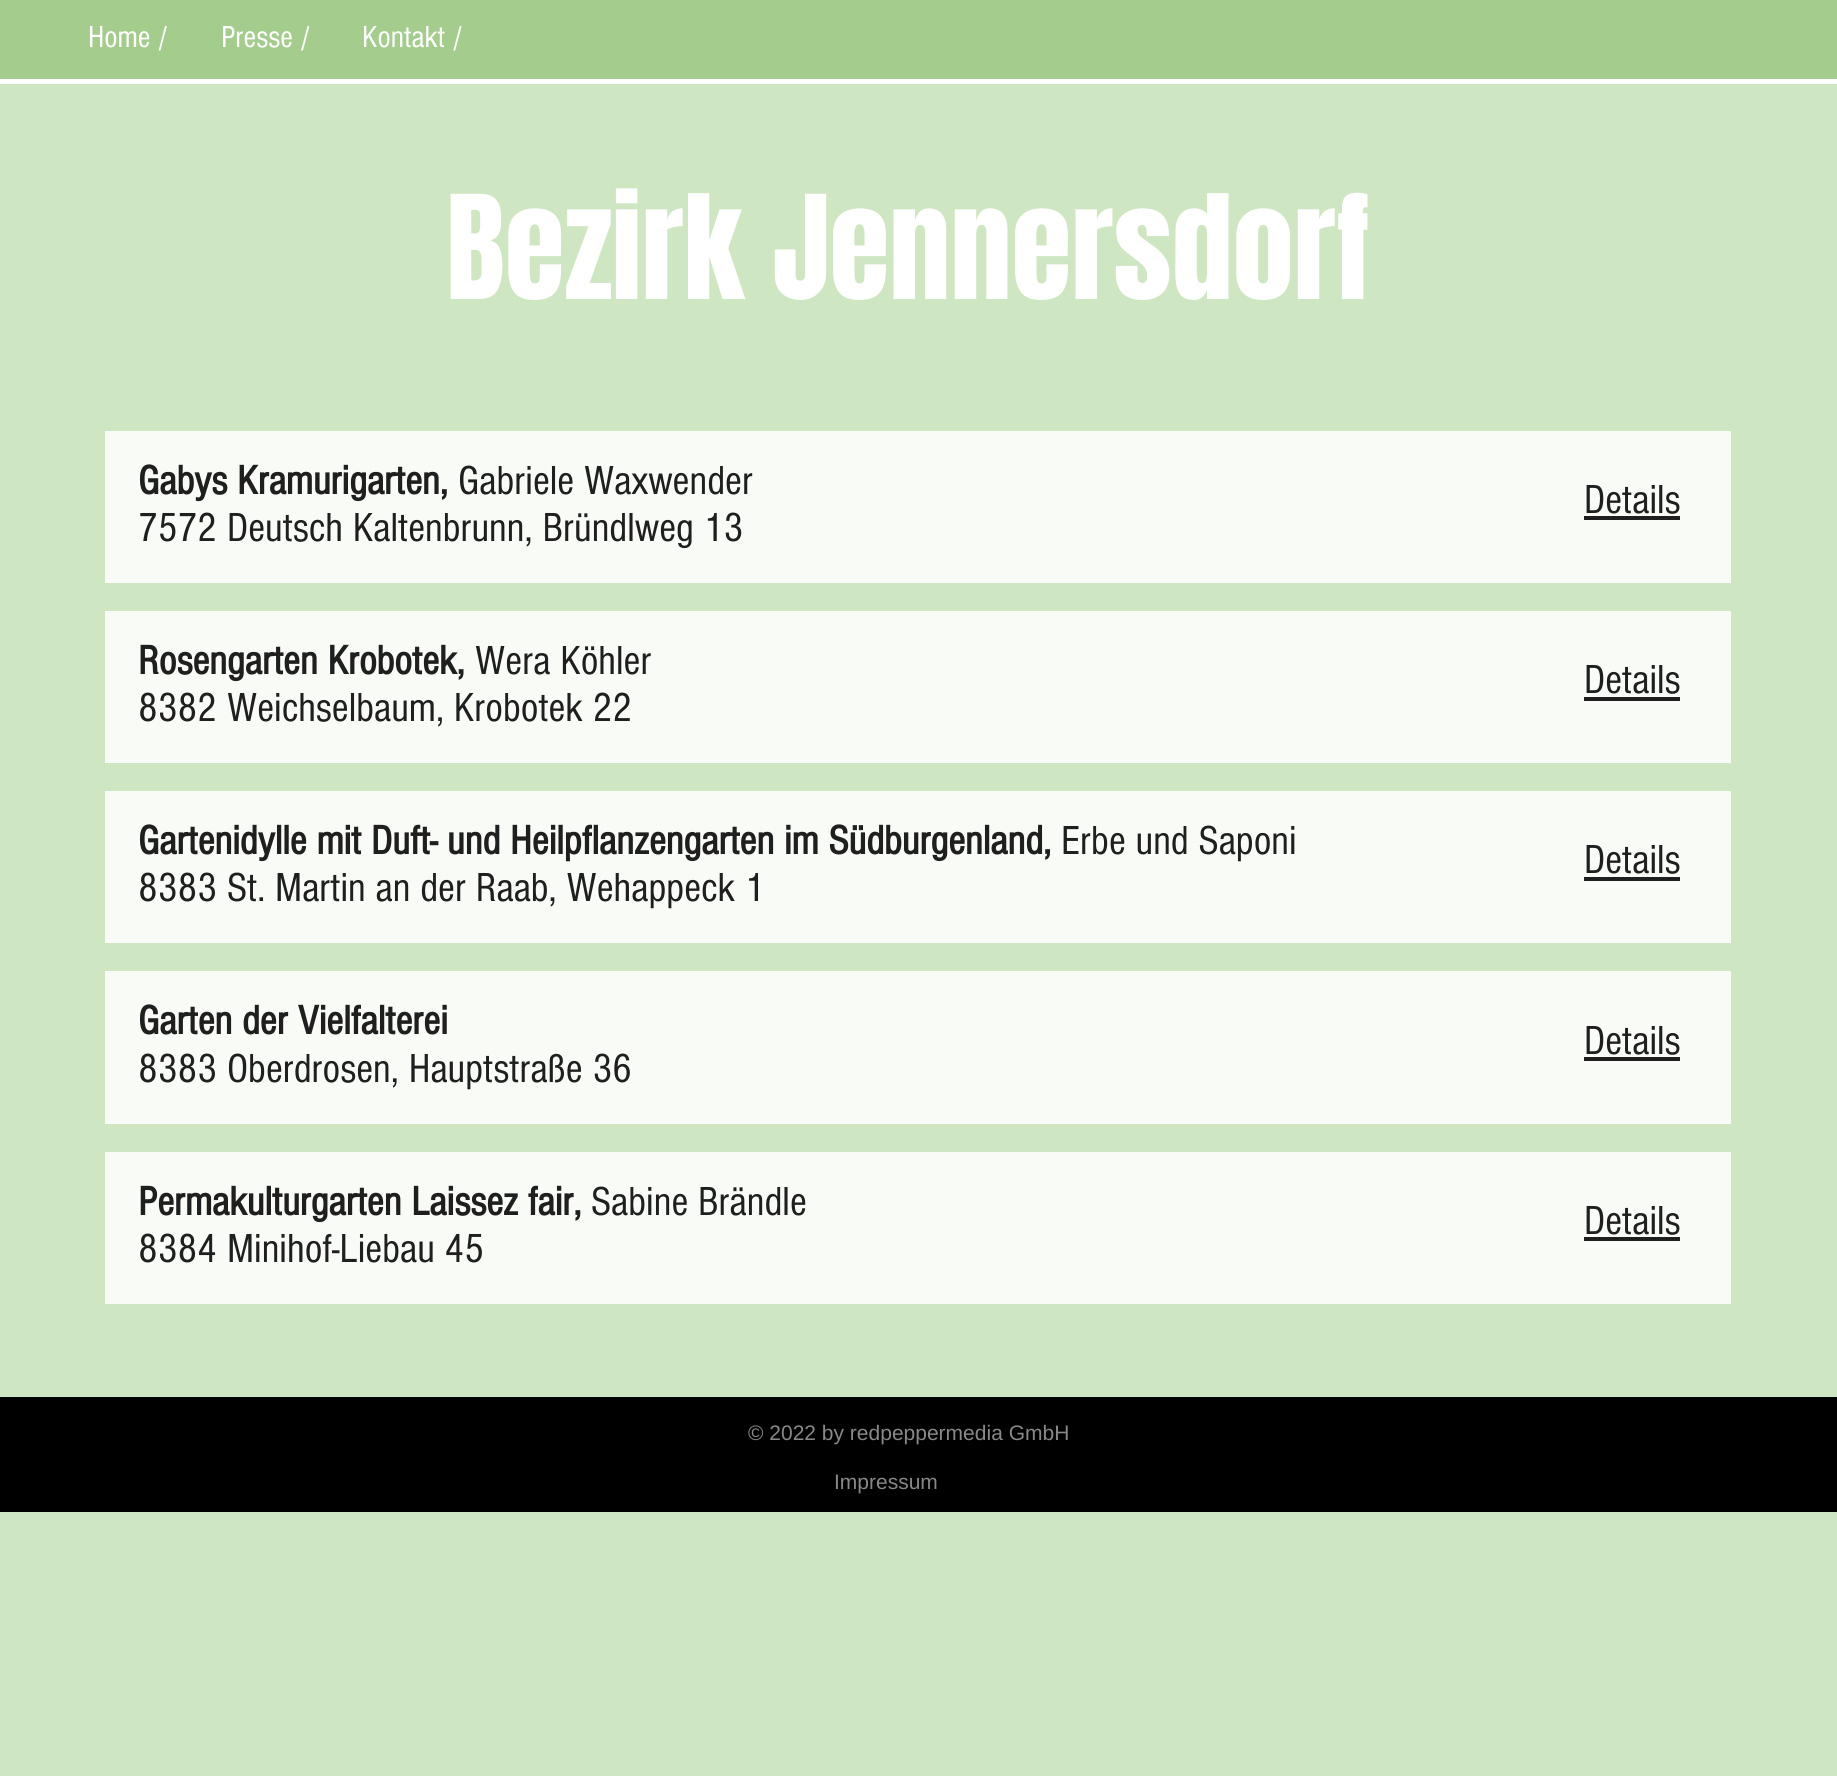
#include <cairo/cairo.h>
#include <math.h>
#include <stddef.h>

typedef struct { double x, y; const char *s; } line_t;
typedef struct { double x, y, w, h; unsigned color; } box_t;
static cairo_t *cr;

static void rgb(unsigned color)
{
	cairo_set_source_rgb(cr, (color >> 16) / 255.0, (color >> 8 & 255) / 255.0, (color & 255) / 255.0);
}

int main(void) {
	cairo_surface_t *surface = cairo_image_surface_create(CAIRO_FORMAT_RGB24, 1837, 1776);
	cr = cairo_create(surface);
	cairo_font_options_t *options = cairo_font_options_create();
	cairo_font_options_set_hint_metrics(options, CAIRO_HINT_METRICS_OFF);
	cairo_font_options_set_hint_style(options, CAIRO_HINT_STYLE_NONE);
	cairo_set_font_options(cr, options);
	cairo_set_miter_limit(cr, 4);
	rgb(0xcfe6c2);
	cairo_paint(cr);
	{
		static const box_t items[] = {
			{0, 0, 1837, 79, 0xa4cc8d},
			{0, 79, 1837, 5, 0xffffff},
			{105, 431, 1626, 152, 0xf8fbf6},
			{1584, 516, 96, 4, 0x1f1f1f},
			{105, 611, 1626, 152, 0xf8fbf6},
			{1584, 697, 96, 4, 0x1f1f1f},
			{105, 791, 1626, 152, 0xf8fbf6},
			{1584, 877, 96, 4, 0x1f1f1f},
			{105, 971, 1626, 153, 0xf8fbf6},
			{1584, 1057, 96, 4, 0x1f1f1f},
			{105, 1152, 1626, 152, 0xf8fbf6},
			{1584, 1237, 96, 4, 0x1f1f1f},
			{0, 1397, 1837, 115, 0x000000},
		};
		for (size_t i = 0; i < sizeof items / sizeof *items; i++) {
			rgb(items[i].color);
			cairo_rectangle(cr, items[i].x, items[i].y, items[i].w, items[i].h);
			cairo_fill(cr);
		}
	}
	cairo_select_font_face(cr, "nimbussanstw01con", CAIRO_FONT_SLANT_NORMAL, CAIRO_FONT_WEIGHT_NORMAL);
	cairo_set_font_size(cr, 31.5);
	rgb(0xffffff);
	{
		static const line_t items[] = {
			{88, 47, "Home /"},
			{221, 47, "Presse /"},
			{362, 47, "Kontakt /"},
		};
		for (size_t i = 0; i < sizeof items / sizeof *items; i++) {
			cairo_move_to(cr, items[i].x, items[i].y);
			cairo_show_text(cr, items[i].s);
		}
	}
	cairo_select_font_face(cr, "Anton", CAIRO_FONT_SLANT_NORMAL, CAIRO_FONT_WEIGHT_NORMAL);
	cairo_set_font_size(cr, 122.5);
	cairo_move_to(cr, 446, 299);
	cairo_show_text(cr, "Bezirk Jennersdorf");
	cairo_select_font_face(cr, "nimbussanstw01con", CAIRO_FONT_SLANT_NORMAL, CAIRO_FONT_WEIGHT_BOLD);
	cairo_set_font_size(cr, 42);
	rgb(0x1f1f1f);
	cairo_move_to(cr, 138, 494);
	cairo_show_text(cr, "Gabys Kramurigarten,");
	cairo_select_font_face(cr, "nimbussanstw01con", CAIRO_FONT_SLANT_NORMAL, CAIRO_FONT_WEIGHT_NORMAL);
	{
		static const line_t items[] = {
			{458, 494, "Gabriele Waxwender"},
			{138, 541, "7572 Deutsch Kaltenbrunn, Bründlweg 13"},
			{1584, 513, "Details"},
		};
		for (size_t i = 0; i < sizeof items / sizeof *items; i++) {
			cairo_move_to(cr, items[i].x, items[i].y);
			cairo_show_text(cr, items[i].s);
		}
	}
	cairo_select_font_face(cr, "nimbussanstw01con", CAIRO_FONT_SLANT_NORMAL, CAIRO_FONT_WEIGHT_BOLD);
	cairo_move_to(cr, 138, 674);
	cairo_show_text(cr, "Rosengarten Krobotek,");
	cairo_select_font_face(cr, "nimbussanstw01con", CAIRO_FONT_SLANT_NORMAL, CAIRO_FONT_WEIGHT_NORMAL);
	{
		static const line_t items[] = {
			{475, 674, "Wera Köhler"},
			{138, 721, "8382 Weichselbaum, Krobotek 22"},
			{1584, 693, "Details"},
		};
		for (size_t i = 0; i < sizeof items / sizeof *items; i++) {
			cairo_move_to(cr, items[i].x, items[i].y);
			cairo_show_text(cr, items[i].s);
		}
	}
	cairo_select_font_face(cr, "nimbussanstw01con", CAIRO_FONT_SLANT_NORMAL, CAIRO_FONT_WEIGHT_BOLD);
	cairo_move_to(cr, 138, 854);
	cairo_show_text(cr, "Gartenidylle mit Duft- und Heilpflanzengarten im Südburgenland,");
	cairo_select_font_face(cr, "nimbussanstw01con", CAIRO_FONT_SLANT_NORMAL, CAIRO_FONT_WEIGHT_NORMAL);
	{
		static const line_t items[] = {
			{1061, 854, "Erbe und Saponi"},
			{138, 901, "8383 St. Martin an der Raab, Wehappeck 1"},
			{1584, 873, "Details"},
		};
		for (size_t i = 0; i < sizeof items / sizeof *items; i++) {
			cairo_move_to(cr, items[i].x, items[i].y);
			cairo_show_text(cr, items[i].s);
		}
	}
	cairo_select_font_face(cr, "nimbussanstw01con", CAIRO_FONT_SLANT_NORMAL, CAIRO_FONT_WEIGHT_BOLD);
	cairo_move_to(cr, 138, 1034);
	cairo_show_text(cr, "Garten der Vielfalterei");
	cairo_select_font_face(cr, "nimbussanstw01con", CAIRO_FONT_SLANT_NORMAL, CAIRO_FONT_WEIGHT_NORMAL);
	cairo_move_to(cr, 138, 1082);
	cairo_show_text(cr, "8383 Oberdrosen, Hauptstraße 36");
	cairo_move_to(cr, 1584, 1054);
	cairo_show_text(cr, "Details");
	cairo_select_font_face(cr, "nimbussanstw01con", CAIRO_FONT_SLANT_NORMAL, CAIRO_FONT_WEIGHT_BOLD);
	cairo_move_to(cr, 138, 1215);
	cairo_show_text(cr, "Permakulturgarten Laissez fair,");
	cairo_select_font_face(cr, "nimbussanstw01con", CAIRO_FONT_SLANT_NORMAL, CAIRO_FONT_WEIGHT_NORMAL);
	{
		static const line_t items[] = {
			{591, 1215, "Sabine Brändle"},
			{138, 1262, "8384 Minihof-Liebau 45"},
			{1584, 1234, "Details"},
		};
		for (size_t i = 0; i < sizeof items / sizeof *items; i++) {
			cairo_move_to(cr, items[i].x, items[i].y);
			cairo_show_text(cr, items[i].s);
		}
	}
	cairo_select_font_face(cr, "Liberation Sans", CAIRO_FONT_SLANT_NORMAL, CAIRO_FONT_WEIGHT_NORMAL);
	cairo_set_font_size(cr, 21);
	rgb(0x888888);
	cairo_move_to(cr, 748, 1440);
	cairo_show_text(cr, "© 2022 by redpeppermedia GmbH");
	cairo_move_to(cr, 834, 1489);
	cairo_show_text(cr, "Impressum");
	cairo_surface_write_to_png(surface, "page.png");
	cairo_font_options_destroy(options);
	cairo_destroy(cr);
	cairo_surface_destroy(surface);
	return 0;
}
